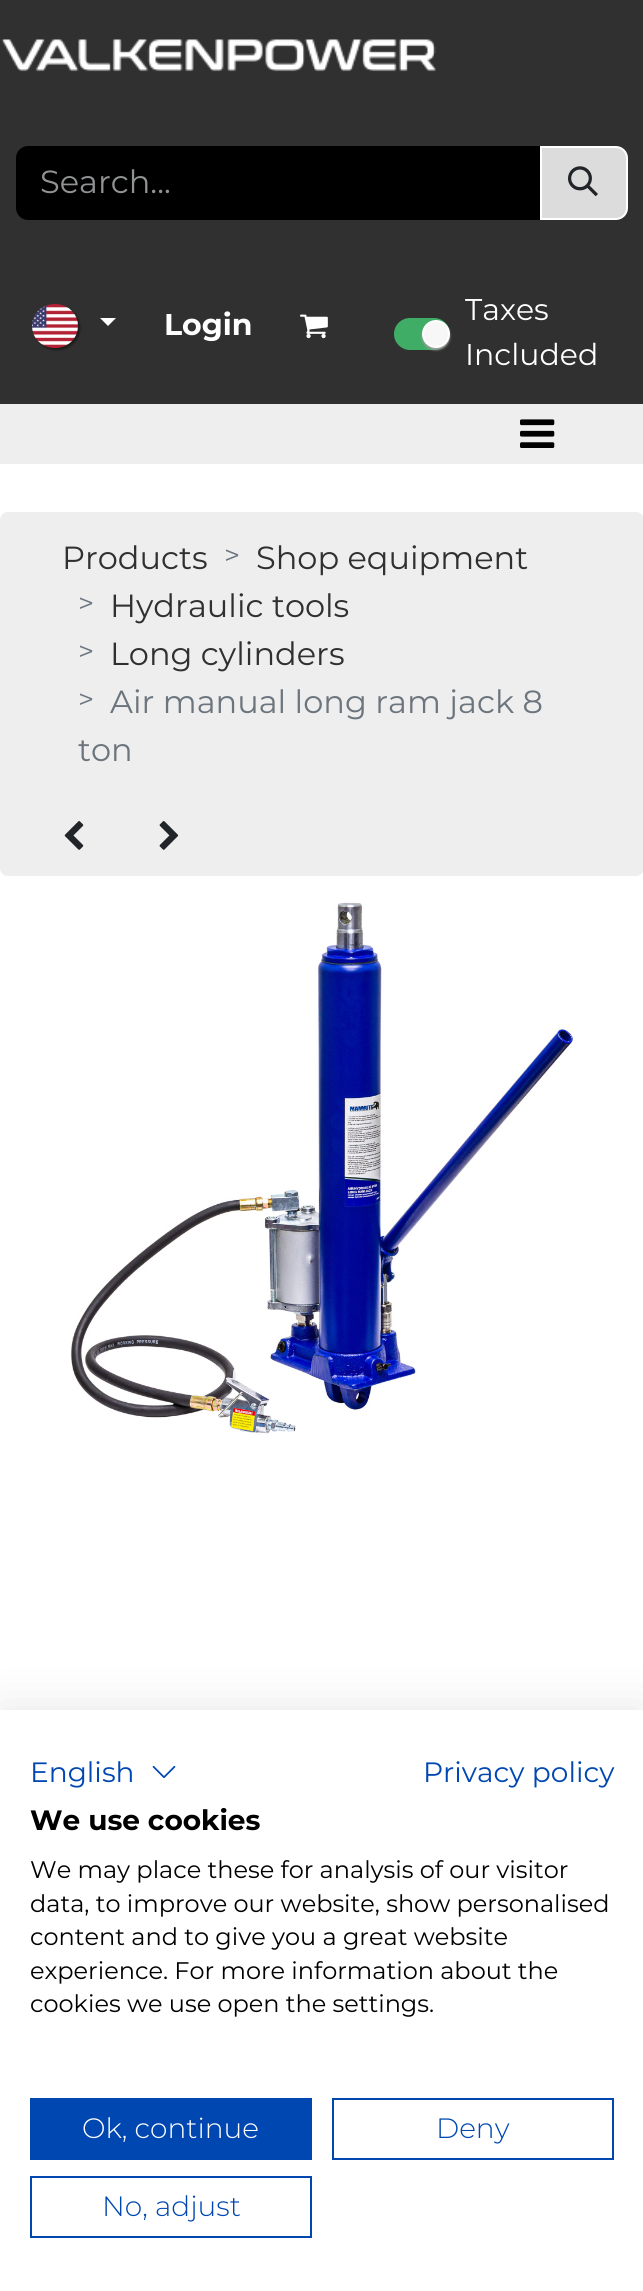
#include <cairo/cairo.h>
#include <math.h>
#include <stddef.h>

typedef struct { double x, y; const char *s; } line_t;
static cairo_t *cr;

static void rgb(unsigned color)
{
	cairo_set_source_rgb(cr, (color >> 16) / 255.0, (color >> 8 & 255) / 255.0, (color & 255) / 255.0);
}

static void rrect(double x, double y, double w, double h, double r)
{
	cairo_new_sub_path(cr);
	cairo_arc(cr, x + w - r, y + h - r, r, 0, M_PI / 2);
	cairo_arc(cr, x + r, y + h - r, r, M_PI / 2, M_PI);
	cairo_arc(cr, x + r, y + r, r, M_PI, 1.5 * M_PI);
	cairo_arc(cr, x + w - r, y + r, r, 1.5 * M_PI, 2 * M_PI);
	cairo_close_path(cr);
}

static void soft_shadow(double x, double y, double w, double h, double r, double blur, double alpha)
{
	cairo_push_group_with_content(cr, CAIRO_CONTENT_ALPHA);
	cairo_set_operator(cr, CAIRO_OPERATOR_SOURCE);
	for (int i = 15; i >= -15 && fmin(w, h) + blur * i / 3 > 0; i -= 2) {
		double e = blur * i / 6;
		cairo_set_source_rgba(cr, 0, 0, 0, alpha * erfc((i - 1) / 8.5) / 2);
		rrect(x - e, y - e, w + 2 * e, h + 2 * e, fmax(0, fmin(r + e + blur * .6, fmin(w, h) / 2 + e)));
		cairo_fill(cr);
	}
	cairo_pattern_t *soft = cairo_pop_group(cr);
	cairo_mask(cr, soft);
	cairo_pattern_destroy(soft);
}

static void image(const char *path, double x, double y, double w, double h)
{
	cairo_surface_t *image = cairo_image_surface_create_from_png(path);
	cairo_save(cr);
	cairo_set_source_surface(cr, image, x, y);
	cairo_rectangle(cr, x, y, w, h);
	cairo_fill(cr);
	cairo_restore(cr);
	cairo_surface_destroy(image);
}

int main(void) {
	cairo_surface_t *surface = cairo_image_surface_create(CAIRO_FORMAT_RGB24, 643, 2291);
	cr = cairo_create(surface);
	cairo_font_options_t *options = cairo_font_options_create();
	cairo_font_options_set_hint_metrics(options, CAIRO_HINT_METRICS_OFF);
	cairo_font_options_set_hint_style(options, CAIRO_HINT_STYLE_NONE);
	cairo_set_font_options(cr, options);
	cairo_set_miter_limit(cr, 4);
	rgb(0xffffff);
	cairo_paint(cr);
	rgb(0x303030);
	cairo_rectangle(cr, 0, 0, 643, 404);
	cairo_fill(cr);
	image("img/1.png", 1, 39, 435, 33);
	rgb(0x000000);
	cairo_new_path(cr);
	cairo_move_to(cr, 28, 146);
	cairo_line_to(cr, 542, 146);
	cairo_line_to(cr, 542, 220);
	cairo_line_to(cr, 28, 220);
	cairo_curve_to(cr, 21.5, 220, 16, 214.5, 16, 208);
	cairo_line_to(cr, 16, 158);
	cairo_curve_to(cr, 16, 151.5, 21.5, 146, 28, 146);
	cairo_close_path(cr);
	cairo_fill(cr);
	rgb(0xdcdcdc);
	cairo_new_path(cr);
	cairo_move_to(cr, 541, 147);
	cairo_line_to(cr, 616, 147);
	cairo_curve_to(cr, 622, 147, 627, 152, 627, 158);
	cairo_line_to(cr, 627, 208);
	cairo_curve_to(cr, 627, 214, 622, 219, 616, 219);
	cairo_line_to(cr, 541, 219);
	cairo_close_path(cr);
	cairo_fill_preserve(cr);
	rgb(0xffffff);
	cairo_stroke(cr);
	image("img/2.png", 568, 166, 30, 31);
	rgb(0x000000);
	soft_shadow(34, 306, 46, 44, 22, 1, 0.43);
	image("img/3.png", 32, 304, 46, 44);
	rgb(0xffffff);
	cairo_new_path(cr);
	cairo_move_to(cr, 100, 318);
	cairo_line_to(cr, 116, 318);
	cairo_line_to(cr, 108, 326);
	cairo_close_path(cr);
	cairo_fill(cr);
	image("img/4.png", 300, 314, 28, 25);
	rgb(0x40ad67);
	rrect(394, 318, 56, 32, 16);
	cairo_fill(cr);
	rgb(0x9e9e9e);
	soft_shadow(422, 322, 28, 28, 14, 1, 1);
	rgb(0xf7f7f7);
	cairo_arc(cr, 436, 334, 13, 0, 2 * M_PI);
	cairo_fill_preserve(cr);
	rgb(0xffffff);
	cairo_stroke(cr);
	rgb(0xeeeeee);
	cairo_rectangle(cr, 0, 404, 643, 60);
	cairo_fill(cr);
	image("img/5.png", 520, 419, 35, 29);
	rrect(0, 512, 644, 364, 8);
	cairo_fill(cr);
	image("img/6.png", 64, 821, 20, 29);
	image("img/7.png", 159, 821, 20, 29);
	image("img/8.png", 71, 902, 502, 533);
	rgb(0x000000);
	soft_shadow(0, 1710, 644, 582, 0, 24, 0.1);
	rgb(0xffffff);
	cairo_rectangle(cr, 0, 1710, 643, 581);
	cairo_fill(cr);
	image("img/9.png", 152, 1765, 24, 13);
	rgb(0x0047b2);
	cairo_rectangle(cr, 30, 2098, 282, 62);
	cairo_fill(cr);
	cairo_rectangle(cr, 333, 2099, 280, 60);
	cairo_stroke(cr);
	cairo_rectangle(cr, 31, 2177, 280, 60);
	cairo_stroke(cr);
	cairo_select_font_face(cr, "Montserrat", CAIRO_FONT_SLANT_NORMAL, CAIRO_FONT_WEIGHT_NORMAL);
	cairo_set_font_size(cr, 32);
	rgb(0x909294);
	cairo_move_to(cr, 40, 193);
	cairo_show_text(cr, "Search...");
	cairo_select_font_face(cr, "Montserrat", CAIRO_FONT_SLANT_NORMAL, CAIRO_FONT_WEIGHT_BOLD);
	cairo_set_font_size(cr, 30);
	rgb(0xffffff);
	cairo_move_to(cr, 164, 335);
	cairo_show_text(cr, "Login");
	cairo_select_font_face(cr, "Montserrat", CAIRO_FONT_SLANT_NORMAL, CAIRO_FONT_WEIGHT_NORMAL);
	cairo_move_to(cr, 465, 320);
	cairo_show_text(cr, "Taxes");
	cairo_move_to(cr, 465, 365);
	cairo_show_text(cr, "Included");
	cairo_set_font_size(cr, 32);
	rgb(0x303030);
	cairo_move_to(cr, 62, 569);
	cairo_show_text(cr, "Products");
	cairo_set_font_size(cr, 28);
	rgb(0x6c757d);
	cairo_move_to(cr, 224, 565);
	cairo_show_text(cr, ">");
	cairo_set_font_size(cr, 32);
	rgb(0x303030);
	cairo_move_to(cr, 256, 569);
	cairo_show_text(cr, "Shop equipment");
	cairo_set_font_size(cr, 28);
	rgb(0x6c757d);
	cairo_move_to(cr, 78, 613);
	cairo_show_text(cr, ">");
	cairo_set_font_size(cr, 32);
	rgb(0x303030);
	cairo_move_to(cr, 110, 617);
	cairo_show_text(cr, "Hydraulic tools");
	cairo_set_font_size(cr, 28);
	rgb(0x6c757d);
	cairo_move_to(cr, 78, 661);
	cairo_show_text(cr, ">");
	cairo_set_font_size(cr, 32);
	rgb(0x303030);
	cairo_move_to(cr, 110, 665);
	cairo_show_text(cr, "Long cylinders");
	cairo_set_font_size(cr, 28);
	rgb(0x6c757d);
	cairo_move_to(cr, 78, 709);
	cairo_show_text(cr, ">");
	cairo_set_font_size(cr, 32);
	cairo_move_to(cr, 110, 713);
	cairo_show_text(cr, "Air manual long ram jack 8");
	cairo_move_to(cr, 78, 761);
	cairo_show_text(cr, "ton");
	cairo_set_font_size(cr, 28);
	rgb(0x0047b2);
	cairo_move_to(cr, 30, 1782);
	cairo_show_text(cr, "English");
	cairo_move_to(cr, 423, 1782);
	cairo_show_text(cr, "Privacy policy");
	cairo_select_font_face(cr, "Montserrat", CAIRO_FONT_SLANT_NORMAL, CAIRO_FONT_WEIGHT_BOLD);
	rgb(0x000000);
	cairo_move_to(cr, 30, 1830);
	cairo_show_text(cr, "We use cookies");
	cairo_select_font_face(cr, "Montserrat", CAIRO_FONT_SLANT_NORMAL, CAIRO_FONT_WEIGHT_NORMAL);
	cairo_set_font_size(cr, 24);
	{
		static const line_t items[] = {
			{30, 1878, "We may place these for analysis of our visitor"},
			{30, 1912, "data, to improve our website, show personalised"},
			{30, 1945, "content and to give you a great website"},
			{30, 1979, "experience. For more information about the"},
			{30, 2012, "cookies we use open the settings."},
		};
		for (size_t i = 0; i < sizeof items / sizeof *items; i++) {
			cairo_move_to(cr, items[i].x, items[i].y);
			cairo_show_text(cr, items[i].s);
		}
	}
	cairo_select_font_face(cr, "Montserrat Light", CAIRO_FONT_SLANT_NORMAL, CAIRO_FONT_WEIGHT_NORMAL);
	cairo_set_font_size(cr, 28);
	rgb(0xffffff);
	cairo_move_to(cr, 82, 2138);
	cairo_show_text(cr, "Ok, continue");
	rgb(0x0047b2);
	cairo_move_to(cr, 436, 2138);
	cairo_show_text(cr, "Deny");
	cairo_move_to(cr, 102, 2216);
	cairo_show_text(cr, "No, adjust");
	cairo_surface_write_to_png(surface, "page.png");
	cairo_font_options_destroy(options);
	cairo_destroy(cr);
	cairo_surface_destroy(surface);
	return 0;
}
